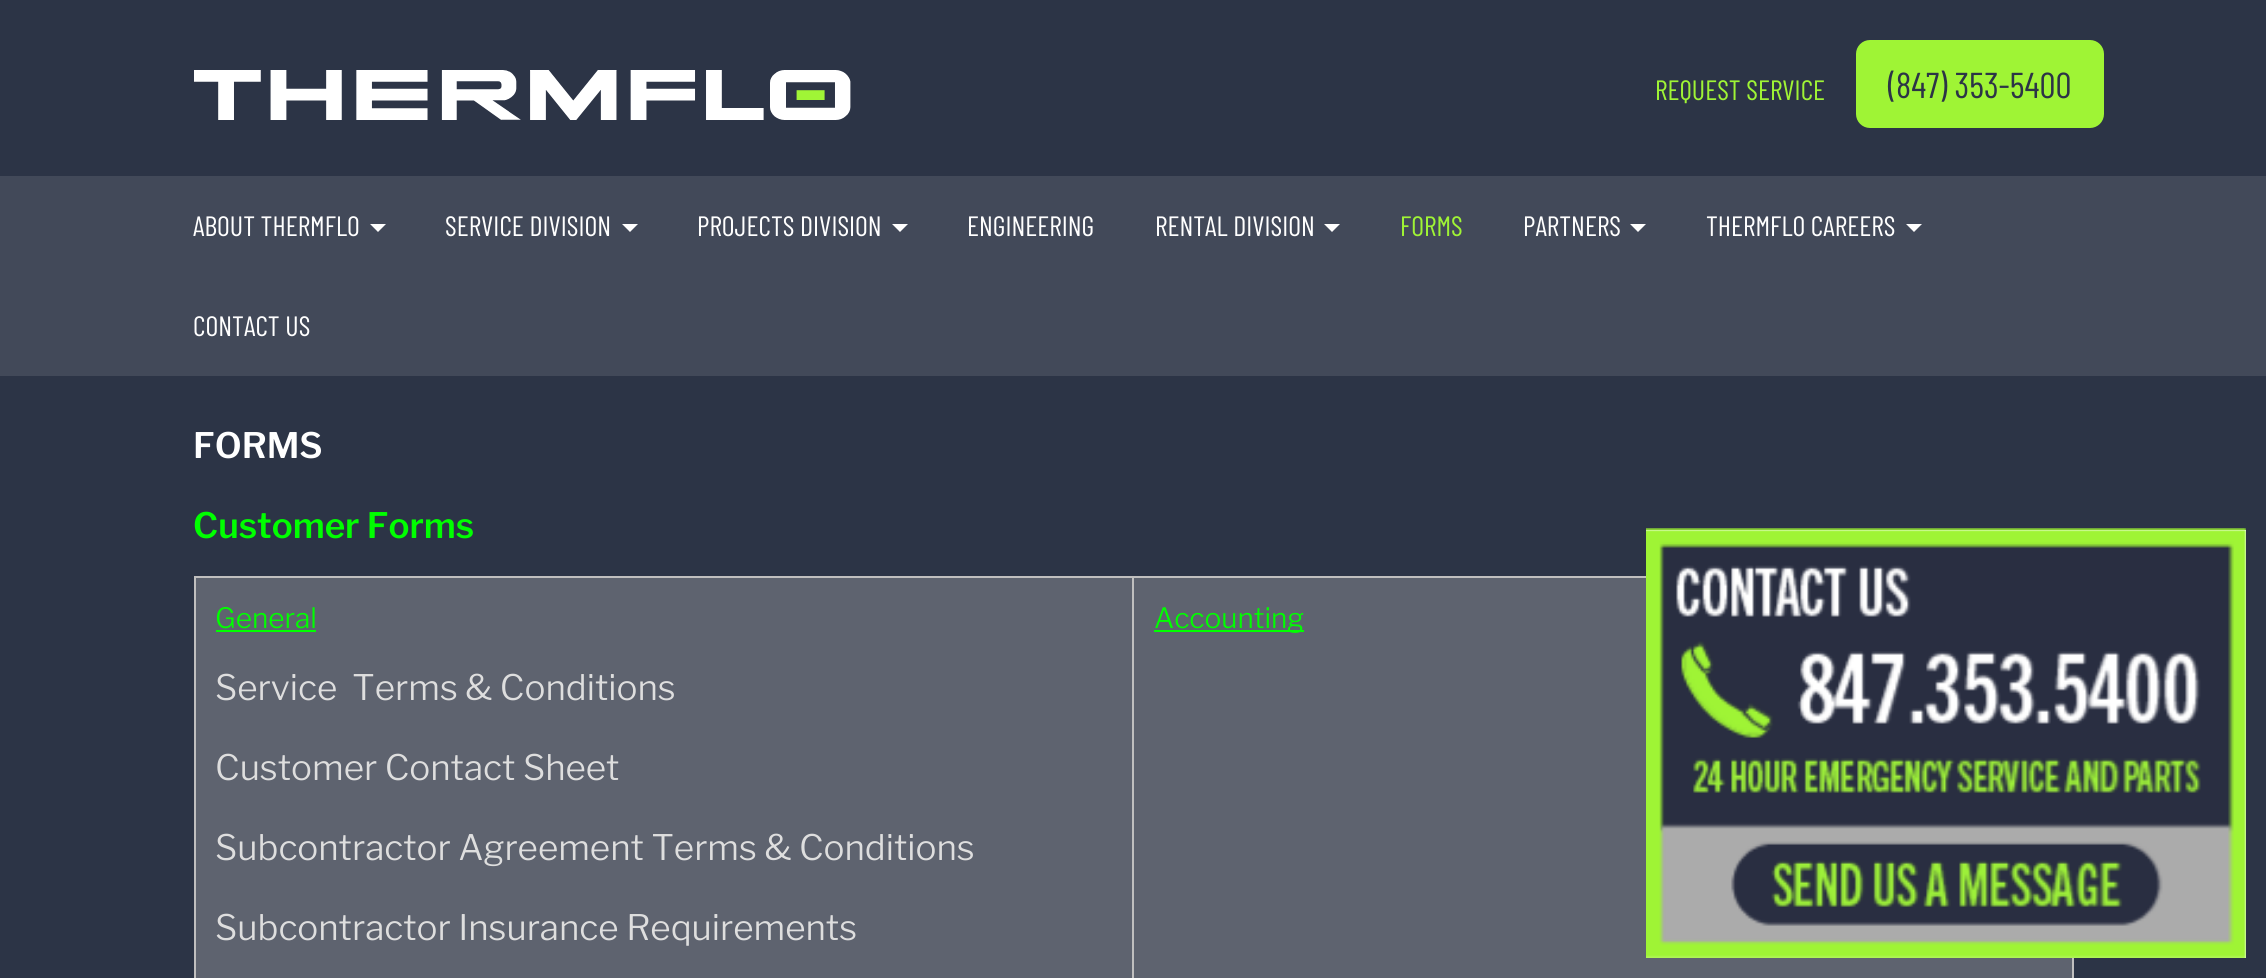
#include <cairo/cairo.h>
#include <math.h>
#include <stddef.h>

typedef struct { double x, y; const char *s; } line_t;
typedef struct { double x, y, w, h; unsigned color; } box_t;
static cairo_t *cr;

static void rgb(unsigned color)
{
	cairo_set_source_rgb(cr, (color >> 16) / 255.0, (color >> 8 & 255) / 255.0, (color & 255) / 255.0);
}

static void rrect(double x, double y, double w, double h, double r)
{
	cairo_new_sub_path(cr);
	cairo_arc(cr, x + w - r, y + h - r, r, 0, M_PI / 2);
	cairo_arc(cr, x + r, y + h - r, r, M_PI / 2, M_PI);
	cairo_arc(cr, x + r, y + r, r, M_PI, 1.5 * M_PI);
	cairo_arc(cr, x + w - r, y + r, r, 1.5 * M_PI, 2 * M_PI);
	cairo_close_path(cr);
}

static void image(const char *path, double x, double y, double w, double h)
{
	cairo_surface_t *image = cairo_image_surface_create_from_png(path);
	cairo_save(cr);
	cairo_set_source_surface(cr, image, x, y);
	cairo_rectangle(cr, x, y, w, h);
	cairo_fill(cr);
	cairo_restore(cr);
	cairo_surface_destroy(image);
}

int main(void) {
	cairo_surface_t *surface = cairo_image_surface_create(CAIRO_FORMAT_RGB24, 2266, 978);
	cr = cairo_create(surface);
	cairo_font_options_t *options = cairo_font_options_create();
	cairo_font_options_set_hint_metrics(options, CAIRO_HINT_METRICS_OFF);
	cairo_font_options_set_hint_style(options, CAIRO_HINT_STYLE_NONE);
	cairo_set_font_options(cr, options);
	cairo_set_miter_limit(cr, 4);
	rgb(0x2c3446);
	cairo_paint(cr);
	image("img/1.png", 194, 70, 657, 50);
	rgb(0x9ff435);
	rrect(1856, 40, 248, 88, 14);
	cairo_fill(cr);
	rgb(0x424959);
	cairo_rectangle(cr, 0, 176, 2266, 200);
	cairo_fill(cr);
	rgb(0xffffff);
	cairo_new_path(cr);
	cairo_move_to(cr, 370, 224);
	cairo_line_to(cr, 386, 224);
	cairo_line_to(cr, 378, 232);
	cairo_close_path(cr);
	cairo_fill(cr);
	cairo_new_path(cr);
	cairo_move_to(cr, 622, 224);
	cairo_line_to(cr, 638, 224);
	cairo_line_to(cr, 630, 232);
	cairo_close_path(cr);
	cairo_fill(cr);
	cairo_new_path(cr);
	cairo_move_to(cr, 892, 224);
	cairo_line_to(cr, 908, 224);
	cairo_line_to(cr, 900, 232);
	cairo_close_path(cr);
	cairo_fill(cr);
	cairo_new_path(cr);
	cairo_move_to(cr, 1324, 224);
	cairo_line_to(cr, 1340, 224);
	cairo_line_to(cr, 1332, 232);
	cairo_close_path(cr);
	cairo_fill(cr);
	cairo_new_path(cr);
	cairo_move_to(cr, 1630, 224);
	cairo_line_to(cr, 1646, 224);
	cairo_line_to(cr, 1638, 232);
	cairo_close_path(cr);
	cairo_fill(cr);
	cairo_new_path(cr);
	cairo_move_to(cr, 1906, 224);
	cairo_line_to(cr, 1922, 224);
	cairo_line_to(cr, 1914, 232);
	cairo_close_path(cr);
	cairo_fill(cr);
	{
		static const box_t items[] = {
			{196, 578, 1876, 400, 0x5e636f},
			{1132, 576, 514, 2, 0xc0bfbf},
			{1132, 576, 2, 402, 0xc0bfbf},
			{194, 576, 940, 2, 0xc0bfbf},
			{194, 576, 2, 402, 0xc0bfbf},
			{216, 630, 100, 2, 0x00ff00},
			{2072, 958, 2, 20, 0xc0bfbf},
			{1154, 630, 150, 2, 0x00ff00},
		};
		for (size_t i = 0; i < sizeof items / sizeof *items; i++) {
			rgb(items[i].color);
			cairo_rectangle(cr, items[i].x, items[i].y, items[i].w, items[i].h);
			cairo_fill(cr);
		}
	}
	image("img/2.png", 1646, 528, 600, 2);
	image("img/3.png", 1646, 528, 600, 2);
	image("img/4.png", 1646, 528, 600, 2);
	image("img/5.png", 1646, 528, 600, 2);
	rgb(0xffffff);
	cairo_rectangle(cr, 1646, 530, 600, 428);
	cairo_fill(cr);
	image("img/6.png", 1646, 528, 600, 430);
	cairo_select_font_face(cr, "Barlow Condensed", CAIRO_FONT_SLANT_NORMAL, CAIRO_FONT_WEIGHT_NORMAL);
	cairo_set_font_size(cr, 28);
	rgb(0x9ff435);
	cairo_move_to(cr, 1655, 100);
	cairo_show_text(cr, "REQUEST SERVICE");
	cairo_set_font_size(cr, 36);
	rgb(0x2c3446);
	cairo_move_to(cr, 1888, 98);
	cairo_show_text(cr, "(847) 353-5400");
	cairo_set_font_size(cr, 28);
	rgb(0xffffff);
	{
		static const line_t items[] = {
			{193, 236, "ABOUT THERMFLO"},
			{445, 236, "SERVICE DIVISION"},
			{697, 236, "PROJECTS DIVISION"},
			{967, 236, "ENGINEERING"},
			{1155, 236, "RENTAL DIVISION"},
		};
		for (size_t i = 0; i < sizeof items / sizeof *items; i++) {
			cairo_move_to(cr, items[i].x, items[i].y);
			cairo_show_text(cr, items[i].s);
		}
	}
	rgb(0x9ff435);
	cairo_move_to(cr, 1400, 236);
	cairo_show_text(cr, "FORMS");
	rgb(0xffffff);
	{
		static const line_t items[] = {
			{1523, 236, "PARTNERS"},
			{1706, 236, "THERMFLO CAREERS"},
			{193, 336, "CONTACT US"},
		};
		for (size_t i = 0; i < sizeof items / sizeof *items; i++) {
			cairo_move_to(cr, items[i].x, items[i].y);
			cairo_show_text(cr, items[i].s);
		}
	}
	cairo_select_font_face(cr, "Libre Franklin SemiBold", CAIRO_FONT_SLANT_NORMAL, CAIRO_FONT_WEIGHT_NORMAL);
	cairo_set_font_size(cr, 35);
	cairo_move_to(cr, 193, 458);
	cairo_show_text(cr, "FORMS");
	rgb(0x00ff00);
	cairo_move_to(cr, 193, 538);
	cairo_show_text(cr, "Customer Forms");
	cairo_select_font_face(cr, "Libre Franklin Light", CAIRO_FONT_SLANT_NORMAL, CAIRO_FONT_WEIGHT_NORMAL);
	cairo_set_font_size(cr, 28);
	cairo_move_to(cr, 215, 628);
	cairo_show_text(cr, "General");
	cairo_set_font_size(cr, 35);
	rgb(0xdedede);
	{
		static const line_t items[] = {
			{215, 700, "Service  Terms & Conditions"},
			{215, 780, "Customer Contact Sheet"},
			{215, 860, "Subcontractor Agreement Terms & Conditions"},
			{215, 940, "Subcontractor Insurance Requirements"},
		};
		for (size_t i = 0; i < sizeof items / sizeof *items; i++) {
			cairo_move_to(cr, items[i].x, items[i].y);
			cairo_show_text(cr, items[i].s);
		}
	}
	cairo_set_font_size(cr, 28);
	rgb(0x00ff00);
	cairo_move_to(cr, 1154, 628);
	cairo_show_text(cr, "Accounting");
	cairo_surface_write_to_png(surface, "page.png");
	cairo_font_options_destroy(options);
	cairo_destroy(cr);
	cairo_surface_destroy(surface);
	return 0;
}
